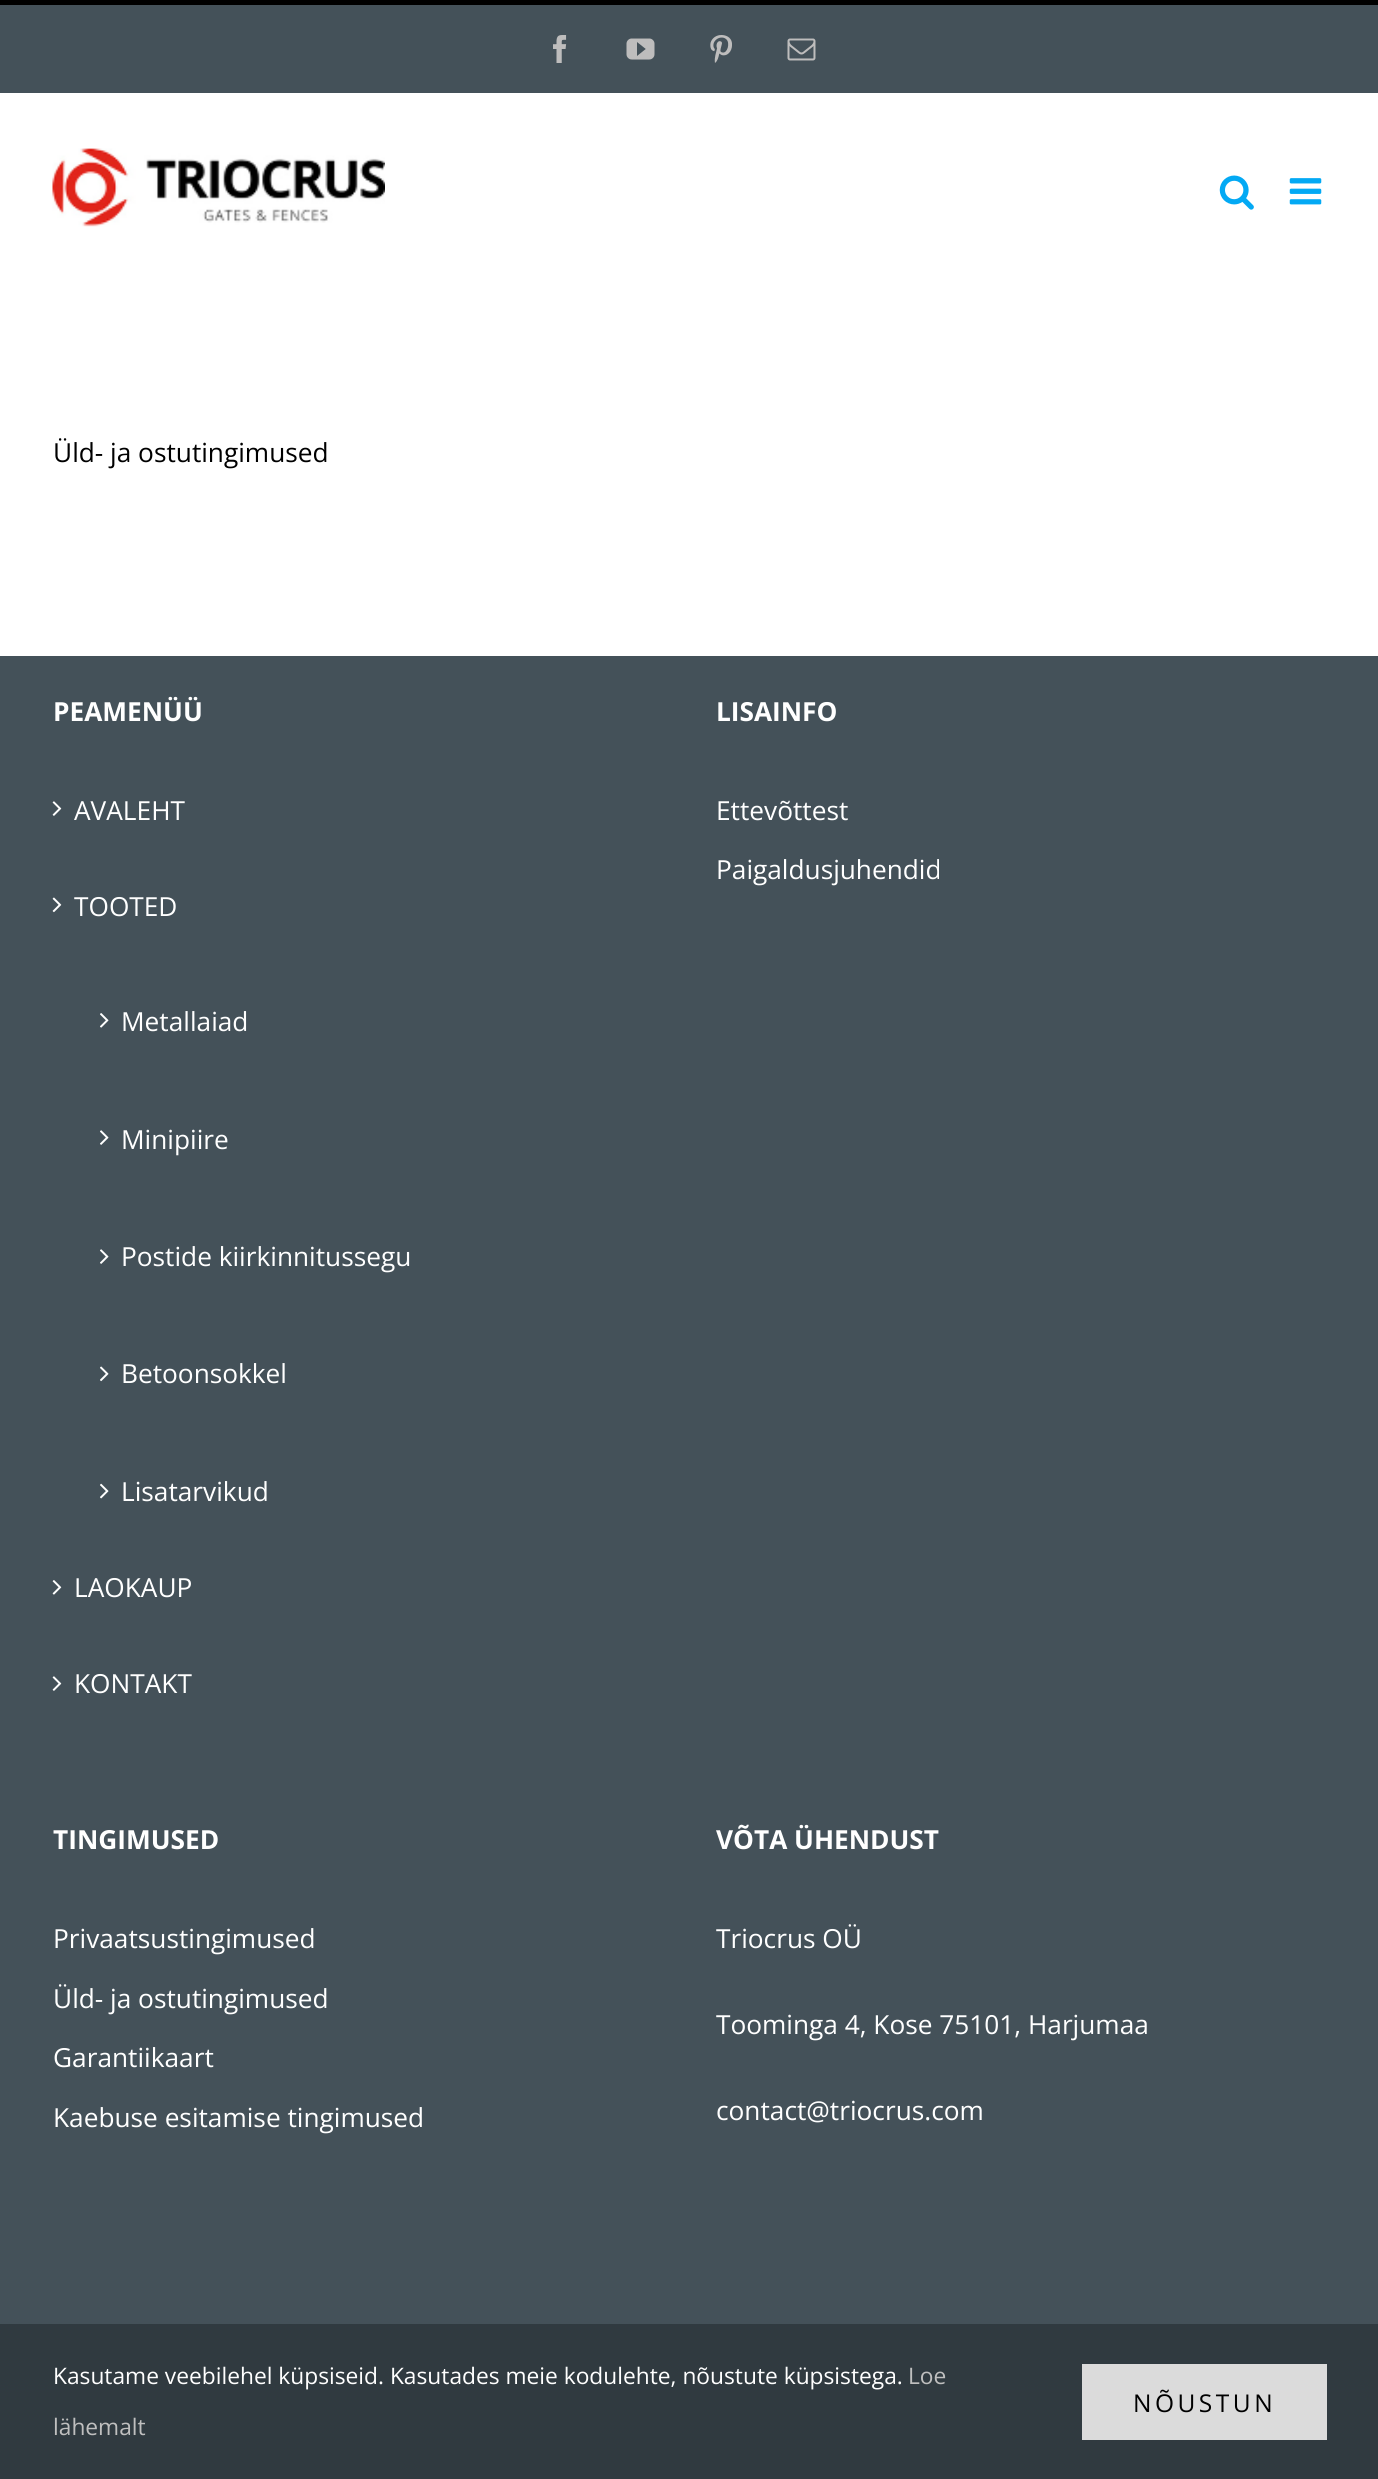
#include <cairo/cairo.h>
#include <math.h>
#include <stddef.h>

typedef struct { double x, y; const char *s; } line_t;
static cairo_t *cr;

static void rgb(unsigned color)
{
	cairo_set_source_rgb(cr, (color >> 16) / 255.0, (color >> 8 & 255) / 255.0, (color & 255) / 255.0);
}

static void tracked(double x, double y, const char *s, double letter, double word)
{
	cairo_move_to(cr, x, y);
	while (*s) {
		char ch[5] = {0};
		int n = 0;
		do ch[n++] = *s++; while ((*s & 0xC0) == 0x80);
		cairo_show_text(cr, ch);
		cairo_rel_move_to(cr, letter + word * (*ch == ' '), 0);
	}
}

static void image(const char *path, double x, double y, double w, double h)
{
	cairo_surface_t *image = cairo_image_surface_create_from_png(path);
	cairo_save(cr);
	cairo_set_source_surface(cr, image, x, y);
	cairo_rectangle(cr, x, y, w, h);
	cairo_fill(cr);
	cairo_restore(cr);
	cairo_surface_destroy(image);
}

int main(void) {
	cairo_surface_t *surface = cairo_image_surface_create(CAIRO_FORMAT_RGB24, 1378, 2479);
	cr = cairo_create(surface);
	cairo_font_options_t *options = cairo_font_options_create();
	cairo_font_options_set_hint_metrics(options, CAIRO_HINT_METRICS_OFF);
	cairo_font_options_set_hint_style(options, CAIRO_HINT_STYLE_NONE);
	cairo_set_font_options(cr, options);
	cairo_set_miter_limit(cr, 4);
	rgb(0xffffff);
	cairo_paint(cr);
	rgb(0x445159);
	cairo_rectangle(cr, 0, 5, 1378, 88);
	cairo_fill(cr);
	rgb(0x000000);
	cairo_rectangle(cr, 0, 0, 1378, 5);
	cairo_fill(cr);
	image("img/1.png", 553, 35, 14, 28);
	image("img/2.png", 626, 38, 29, 22);
	image("img/3.png", 710, 35, 22, 28);
	image("img/4.png", 787, 38, 29, 23);
	image("img/5.png", 52, 148, 333, 79);
	image("img/6.png", 1219, 175, 35, 35);
	image("img/7.png", 1289, 178, 33, 27);
	rgb(0x445159);
	cairo_rectangle(cr, 0, 656, 1378, 1668);
	cairo_fill(cr);
	image("img/8.png", 52, 801, 10, 15);
	image("img/9.png", 52, 897, 10, 16);
	image("img/10.png", 100, 1013, 9, 15);
	image("img/11.png", 100, 1130, 9, 15);
	image("img/11.png", 100, 1249, 9, 15);
	image("img/12.png", 100, 1366, 9, 16);
	image("img/13.png", 100, 1483, 9, 16);
	image("img/14.png", 52, 1580, 10, 15);
	image("img/8.png", 52, 1676, 10, 15);
	rgb(0x303a40);
	cairo_rectangle(cr, 0, 2324, 1378, 155);
	cairo_fill(cr);
	rgb(0xdbdbdb);
	cairo_rectangle(cr, 1082, 2364, 245, 76);
	cairo_fill(cr);
	cairo_select_font_face(cr, "Open Sans", CAIRO_FONT_SLANT_NORMAL, CAIRO_FONT_WEIGHT_NORMAL);
	cairo_set_font_size(cr, 26.25);
	rgb(0x000000);
	cairo_move_to(cr, 53, 462);
	cairo_show_text(cr, "Üld- ja ostutingimused");
	cairo_select_font_face(cr, "Open Sans", CAIRO_FONT_SLANT_NORMAL, CAIRO_FONT_WEIGHT_BOLD);
	rgb(0xffffff);
	cairo_move_to(cr, 53, 721);
	cairo_show_text(cr, "PEAMENÜÜ");
	cairo_select_font_face(cr, "Open Sans", CAIRO_FONT_SLANT_NORMAL, CAIRO_FONT_WEIGHT_NORMAL);
	{
		static const line_t items[] = {
			{74, 820, "AVALEHT"},
			{74, 916, "TOOTED"},
			{121, 1031, "Metallaiad"},
			{121, 1149, "Minipiire"},
			{121, 1266, "Postide kiirkinnitussegu"},
			{121, 1383, "Betoonsokkel"},
			{121, 1501, "Lisatarvikud"},
			{74, 1597, "LAOKAUP"},
			{74, 1693, "KONTAKT"},
		};
		for (size_t i = 0; i < sizeof items / sizeof *items; i++) {
			cairo_move_to(cr, items[i].x, items[i].y);
			cairo_show_text(cr, items[i].s);
		}
	}
	cairo_select_font_face(cr, "Open Sans", CAIRO_FONT_SLANT_NORMAL, CAIRO_FONT_WEIGHT_BOLD);
	cairo_move_to(cr, 716, 721);
	cairo_show_text(cr, "LISAINFO");
	cairo_select_font_face(cr, "Open Sans", CAIRO_FONT_SLANT_NORMAL, CAIRO_FONT_WEIGHT_NORMAL);
	cairo_move_to(cr, 716, 820);
	cairo_show_text(cr, "Ettevõttest");
	cairo_move_to(cr, 716, 879);
	cairo_show_text(cr, "Paigaldusjuhendid");
	cairo_select_font_face(cr, "Open Sans", CAIRO_FONT_SLANT_NORMAL, CAIRO_FONT_WEIGHT_BOLD);
	cairo_move_to(cr, 53, 1849);
	cairo_show_text(cr, "TINGIMUSED");
	cairo_select_font_face(cr, "Open Sans", CAIRO_FONT_SLANT_NORMAL, CAIRO_FONT_WEIGHT_NORMAL);
	{
		static const line_t items[] = {
			{53, 1948, "Privaatsustingimused"},
			{53, 2008, "Üld- ja ostutingimused"},
			{53, 2067, "Garantiikaart"},
			{53, 2127, "Kaebuse esitamise tingimused"},
		};
		for (size_t i = 0; i < sizeof items / sizeof *items; i++) {
			cairo_move_to(cr, items[i].x, items[i].y);
			cairo_show_text(cr, items[i].s);
		}
	}
	cairo_select_font_face(cr, "Open Sans", CAIRO_FONT_SLANT_NORMAL, CAIRO_FONT_WEIGHT_BOLD);
	cairo_move_to(cr, 716, 1849);
	cairo_show_text(cr, "VÕTA ÜHENDUST");
	cairo_select_font_face(cr, "Open Sans", CAIRO_FONT_SLANT_NORMAL, CAIRO_FONT_WEIGHT_NORMAL);
	{
		static const line_t items[] = {
			{716, 1948, "Triocrus OÜ"},
			{716, 2034, "Toominga 4, Kose 75101, Harjumaa"},
			{716, 2120, "contact@triocrus.com"},
		};
		for (size_t i = 0; i < sizeof items / sizeof *items; i++) {
			cairo_move_to(cr, items[i].x, items[i].y);
			cairo_show_text(cr, items[i].s);
		}
	}
	cairo_set_font_size(cr, 22.75);
	cairo_move_to(cr, 53, 2384);
	cairo_show_text(cr, "Kasutame veebilehel küpsiseid. Kasutades meie kodulehte, nõustute küpsistega.");
	rgb(0xbfbfbf);
	cairo_move_to(cr, 908, 2384);
	cairo_show_text(cr, "Loe");
	cairo_move_to(cr, 53, 2435);
	cairo_show_text(cr, "lähemalt");
	cairo_set_font_size(cr, 24.5);
	rgb(0x000000);
	tracked(1133, 2412, "NÕUSTUN", 3.5, 0);
	cairo_surface_write_to_png(surface, "page.png");
	cairo_font_options_destroy(options);
	cairo_destroy(cr);
	cairo_surface_destroy(surface);
	return 0;
}
